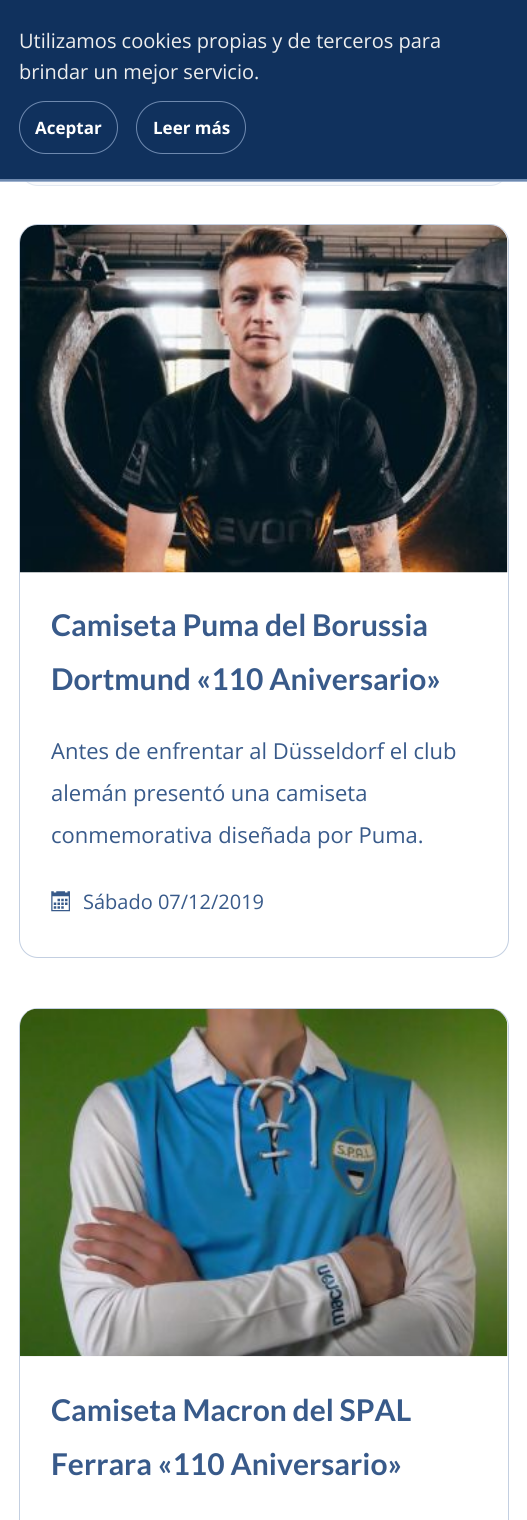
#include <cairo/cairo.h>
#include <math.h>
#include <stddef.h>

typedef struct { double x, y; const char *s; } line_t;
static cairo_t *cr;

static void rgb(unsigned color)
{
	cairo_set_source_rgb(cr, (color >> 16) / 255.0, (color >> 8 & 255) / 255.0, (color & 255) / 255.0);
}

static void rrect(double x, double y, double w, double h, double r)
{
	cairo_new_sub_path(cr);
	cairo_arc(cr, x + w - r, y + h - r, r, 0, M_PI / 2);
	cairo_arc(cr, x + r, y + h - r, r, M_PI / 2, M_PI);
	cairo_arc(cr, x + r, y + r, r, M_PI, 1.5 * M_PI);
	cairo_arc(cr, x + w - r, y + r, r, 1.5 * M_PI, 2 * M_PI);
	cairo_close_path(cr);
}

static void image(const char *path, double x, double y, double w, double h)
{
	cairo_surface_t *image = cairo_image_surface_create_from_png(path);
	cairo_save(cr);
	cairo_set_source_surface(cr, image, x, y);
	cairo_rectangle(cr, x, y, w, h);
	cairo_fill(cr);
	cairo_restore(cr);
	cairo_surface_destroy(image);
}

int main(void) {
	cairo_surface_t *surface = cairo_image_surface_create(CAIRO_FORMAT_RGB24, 527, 1520);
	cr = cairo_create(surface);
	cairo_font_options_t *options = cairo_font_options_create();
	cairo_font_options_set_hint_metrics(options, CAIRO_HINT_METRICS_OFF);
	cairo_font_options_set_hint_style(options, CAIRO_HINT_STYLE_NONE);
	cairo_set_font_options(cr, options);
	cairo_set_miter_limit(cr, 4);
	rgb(0xffffff);
	cairo_paint(cr);
	rgb(0xf9fafc);
	rrect(19.5, 103.5, 489, 82, 18.5);
	cairo_fill_preserve(cr);
	rgb(0xe2e8f1);
	cairo_set_line_width(cr, 1);
	cairo_stroke(cr);
	rgb(0x10315d);
	cairo_rectangle(cr, 0, 0, 527, 181);
	cairo_fill(cr);
	cairo_set_source_rgba(cr, 0.525, 0.624, 0.765, 0.8);
	cairo_rectangle(cr, 0, 179, 527, 3);
	cairo_fill(cr);
	rrect(19.5, 101.5, 98, 52, 26);
	rgb(0x6e89af);
	cairo_stroke(cr);
	rrect(136.5, 101.5, 109, 52, 26);
	cairo_stroke(cr);
	rrect(19.5, 224.5, 489, 733, 18.5);
	rgb(0xc3cfe1);
	cairo_stroke(cr);
	rgb(0xffffff);
	cairo_new_path(cr);
	cairo_move_to(cr, 38, 225);
	cairo_line_to(cr, 490, 225);
	cairo_curve_to(cr, 500, 225, 508, 233, 508, 243);
	cairo_line_to(cr, 508, 573);
	cairo_line_to(cr, 20, 573);
	cairo_line_to(cr, 20, 243);
	cairo_curve_to(cr, 20, 233, 28, 225, 38, 225);
	cairo_close_path(cr);
	cairo_fill(cr);
	image("img/1.png", 20, 225, 488, 348);
	image("img/2.png", 51, 891, 19, 21);
	rrect(19.5, 1008.5, 489, 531, 18.5);
	rgb(0xc3cfe1);
	cairo_stroke(cr);
	rgb(0xffffff);
	cairo_new_path(cr);
	cairo_move_to(cr, 38, 1009);
	cairo_line_to(cr, 490, 1009);
	cairo_curve_to(cr, 500, 1009, 508, 1017, 508, 1027);
	cairo_line_to(cr, 508, 1356);
	cairo_line_to(cr, 20, 1356);
	cairo_line_to(cr, 20, 1027);
	cairo_curve_to(cr, 20, 1017, 28, 1009, 38, 1009);
	cairo_close_path(cr);
	cairo_fill(cr);
	image("img/3.png", 20, 1009, 488, 348);
	cairo_select_font_face(cr, "Open Sans", CAIRO_FONT_SLANT_NORMAL, CAIRO_FONT_WEIGHT_NORMAL);
	cairo_set_font_size(cr, 20);
	rgb(0xeeeeee);
	cairo_move_to(cr, 19, 48);
	cairo_show_text(cr, "Utilizamos cookies propias y de terceros para");
	cairo_move_to(cr, 19, 79);
	cairo_show_text(cr, "brindar un mejor servicio.");
	cairo_select_font_face(cr, "Open Sans", CAIRO_FONT_SLANT_NORMAL, CAIRO_FONT_WEIGHT_BOLD);
	cairo_set_font_size(cr, 17);
	rgb(0xffffff);
	cairo_move_to(cr, 35, 134);
	cairo_show_text(cr, "Aceptar");
	cairo_move_to(cr, 153, 134);
	cairo_show_text(cr, "Leer más");
	cairo_select_font_face(cr, "Lato", CAIRO_FONT_SLANT_NORMAL, CAIRO_FONT_WEIGHT_BOLD);
	cairo_set_font_size(cr, 30);
	rgb(0x385a8a);
	cairo_move_to(cr, 51, 636);
	cairo_show_text(cr, "Camiseta Puma del Borussia");
	cairo_move_to(cr, 51, 690);
	cairo_show_text(cr, "Dortmund «110 Aniversario»");
	cairo_select_font_face(cr, "Open Sans", CAIRO_FONT_SLANT_NORMAL, CAIRO_FONT_WEIGHT_NORMAL);
	cairo_set_font_size(cr, 22);
	{
		static const line_t items[] = {
			{51, 759, "Antes de enfrentar al Düsseldorf el club"},
			{51, 801, "alemán presentó una camiseta"},
			{51, 843, "conmemorativa diseñada por Puma."},
		};
		for (size_t i = 0; i < sizeof items / sizeof *items; i++) {
			cairo_move_to(cr, items[i].x, items[i].y);
			cairo_show_text(cr, items[i].s);
		}
	}
	cairo_set_font_size(cr, 20);
	cairo_move_to(cr, 83, 909);
	cairo_show_text(cr, "Sábado 07/12/2019");
	cairo_select_font_face(cr, "Lato", CAIRO_FONT_SLANT_NORMAL, CAIRO_FONT_WEIGHT_BOLD);
	cairo_set_font_size(cr, 30);
	cairo_move_to(cr, 51, 1421);
	cairo_show_text(cr, "Camiseta Macron del SPAL");
	cairo_move_to(cr, 51, 1475);
	cairo_show_text(cr, "Ferrara «110 Aniversario»");
	cairo_surface_write_to_png(surface, "page.png");
	cairo_font_options_destroy(options);
	cairo_destroy(cr);
	cairo_surface_destroy(surface);
	return 0;
}
